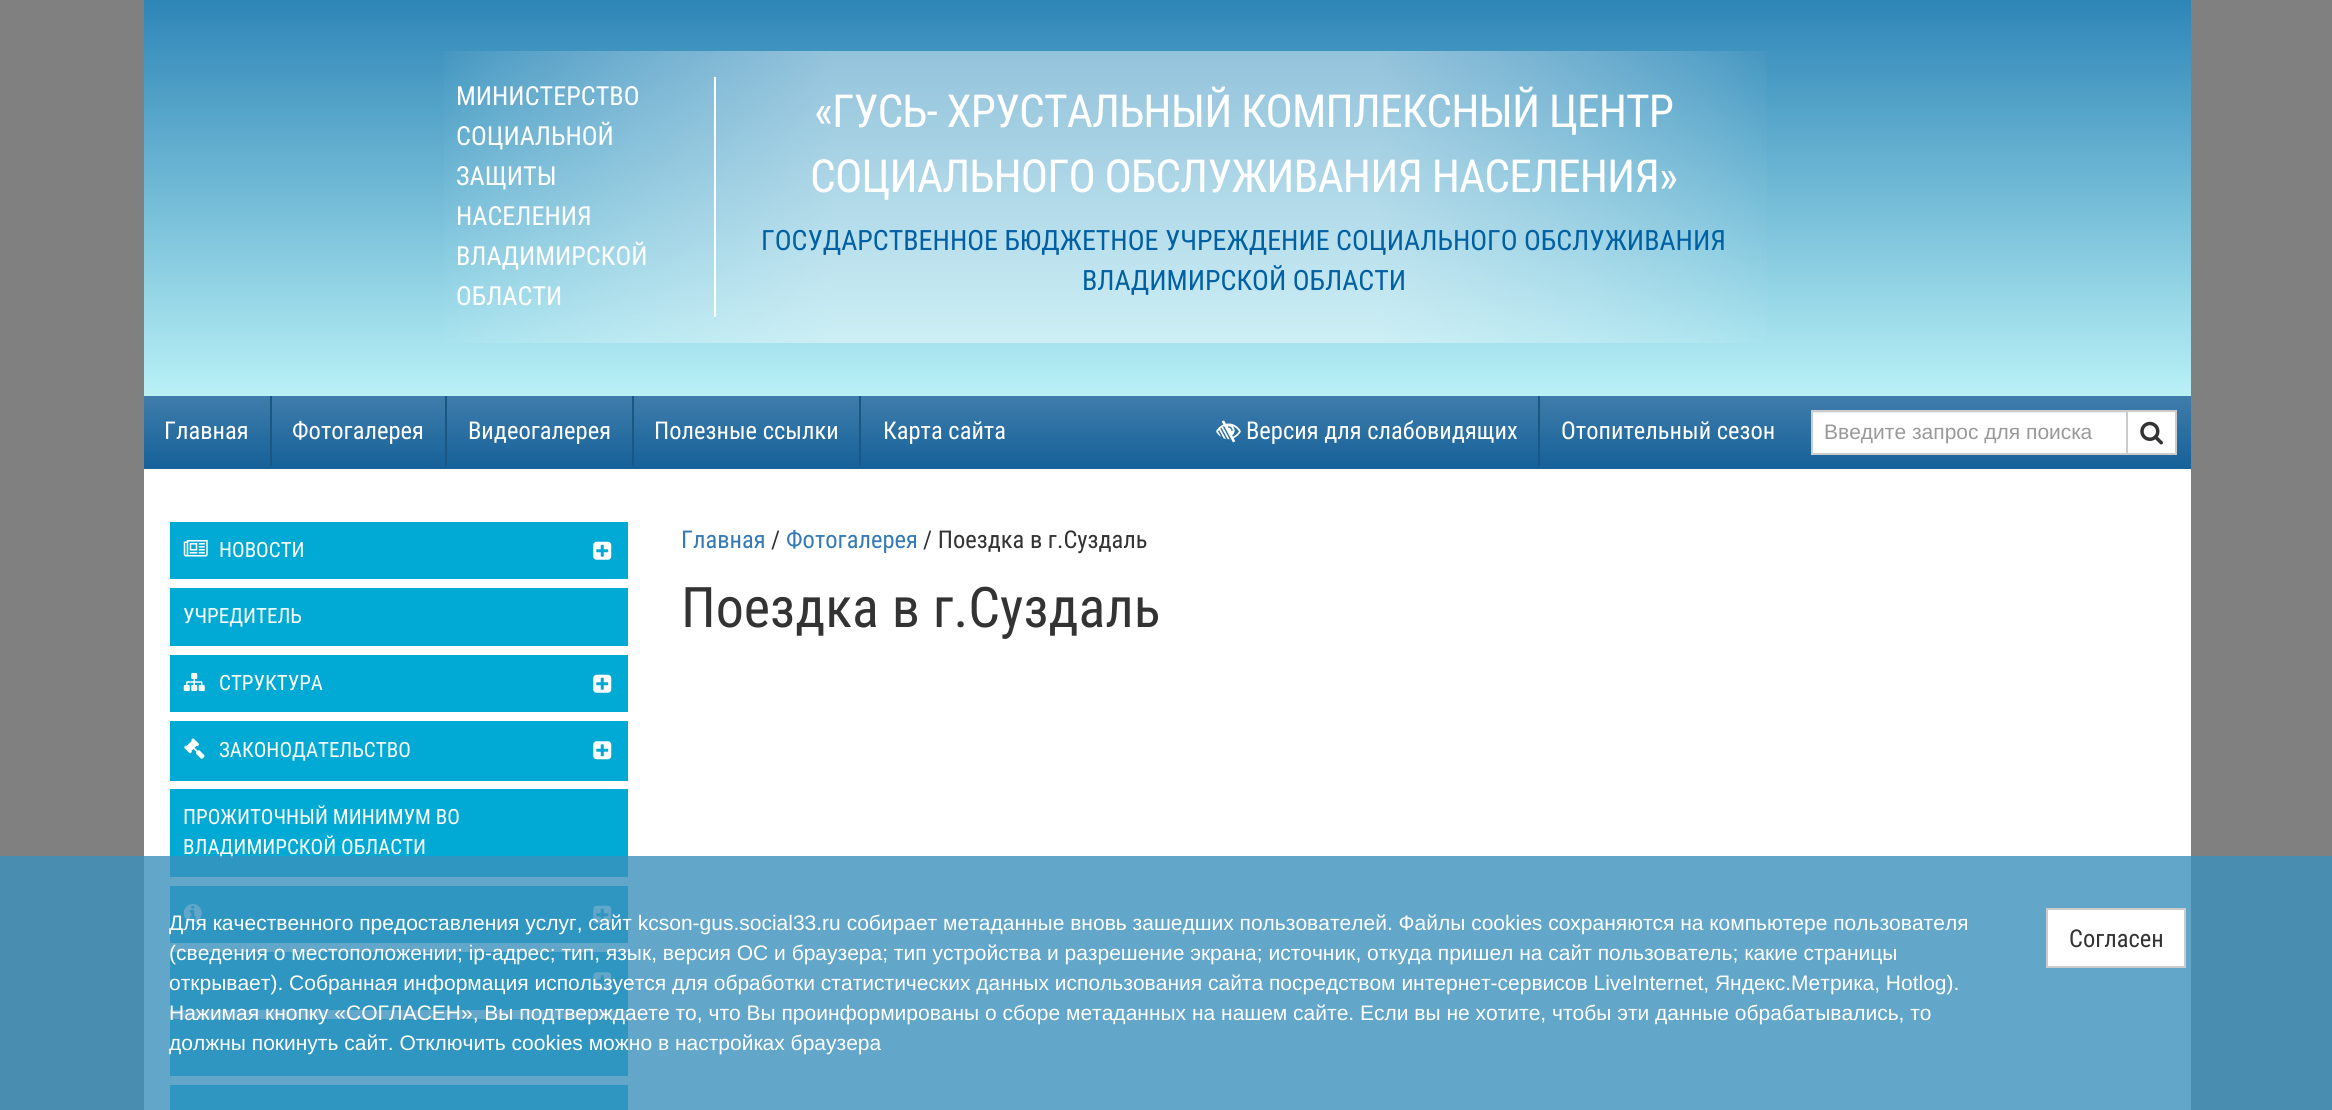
#include <cairo/cairo.h>
#include <math.h>
#include <stddef.h>

typedef struct { double x, y; const char *s; } line_t;
typedef struct { double x, y, w, h; unsigned color; } box_t;
static cairo_t *cr;

static void rgb(unsigned color)
{
	cairo_set_source_rgb(cr, (color >> 16) / 255.0, (color >> 8 & 255) / 255.0, (color & 255) / 255.0);
}

static void tracked(double x, double y, const char *s, double letter, double word)
{
	cairo_move_to(cr, x, y);
	while (*s) {
		char ch[5] = {0};
		int n = 0;
		do ch[n++] = *s++; while ((*s & 0xC0) == 0x80);
		cairo_show_text(cr, ch);
		cairo_rel_move_to(cr, letter + word * (*ch == ' '), 0);
	}
}

static void image(const char *path, double x, double y, double w, double h)
{
	cairo_surface_t *image = cairo_image_surface_create_from_png(path);
	cairo_save(cr);
	cairo_set_source_surface(cr, image, x, y);
	cairo_rectangle(cr, x, y, w, h);
	cairo_fill(cr);
	cairo_restore(cr);
	cairo_surface_destroy(image);
}

int main(void) {
	cairo_surface_t *surface = cairo_image_surface_create(CAIRO_FORMAT_RGB24, 2332, 1110);
	cr = cairo_create(surface);
	cairo_font_options_t *options = cairo_font_options_create();
	cairo_font_options_set_hint_metrics(options, CAIRO_HINT_METRICS_OFF);
	cairo_font_options_set_hint_style(options, CAIRO_HINT_STYLE_NONE);
	cairo_set_font_options(cr, options);
	cairo_set_miter_limit(cr, 4);
	cairo_pattern_t *gradient;
	rgb(0x808080);
	cairo_paint(cr);
	rgb(0xffffff);
	cairo_rectangle(cr, 144, 469, 2047, 641);
	cairo_fill(cr);
	gradient = cairo_pattern_create_linear(1167, -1.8, 1167, 396);
	cairo_pattern_add_color_stop_rgba(gradient, 0, 0.176, 0.522, 0.718, 1);
	cairo_pattern_add_color_stop_rgba(gradient, 1, 0.725, 0.945, 0.965, 1);
	cairo_set_source(cr, gradient);
	cairo_pattern_destroy(gradient);
	cairo_rectangle(cr, 144, 0, 2047, 396);
	cairo_fill(cr);
	gradient = cairo_pattern_create_linear(429, 197, 1782, 197);
	cairo_pattern_add_color_stop_rgba(gradient, 0, 1, 1, 1, 0);
	cairo_pattern_add_color_stop_rgba(gradient, 0.05, 1, 1, 1, 0.1);
	cairo_pattern_add_color_stop_rgba(gradient, 0.15, 1, 1, 1, 0.25);
	cairo_pattern_add_color_stop_rgba(gradient, 0.3, 1, 1, 1, 0.44);
	cairo_pattern_add_color_stop_rgba(gradient, 0.7, 1, 1, 1, 0.44);
	cairo_pattern_add_color_stop_rgba(gradient, 0.85, 1, 1, 1, 0.25);
	cairo_pattern_add_color_stop_rgba(gradient, 0.95, 1, 1, 1, 0.1);
	cairo_pattern_add_color_stop_rgba(gradient, 1, 1, 1, 1, 0);
	cairo_set_source(cr, gradient);
	cairo_pattern_destroy(gradient);
	cairo_rectangle(cr, 444, 51, 1323, 292);
	cairo_fill(cr);
	rgb(0xffffff);
	cairo_rectangle(cr, 714, 77, 2, 240);
	cairo_fill(cr);
	gradient = cairo_pattern_create_linear(1167, 395, 1167, 469);
	cairo_pattern_add_color_stop_rgba(gradient, 0, 0.251, 0.49, 0.671, 1);
	cairo_pattern_add_color_stop_rgba(gradient, 1, 0.082, 0.38, 0.6, 1);
	cairo_set_source(cr, gradient);
	cairo_pattern_destroy(gradient);
	cairo_rectangle(cr, 144, 396, 2047, 73);
	cairo_fill(cr);
	{
		static const box_t items[] = {
			{270, 396, 2, 70, 0x1b5783},
			{445, 396, 2, 70, 0x1b5783},
			{632, 396, 2, 70, 0x1b5783},
			{859, 396, 2, 70, 0x1b5783},
			{1538, 396, 2, 70, 0x1b5783},
		};
		for (size_t i = 0; i < sizeof items / sizeof *items; i++) {
			rgb(items[i].color);
			cairo_rectangle(cr, items[i].x, items[i].y, items[i].w, items[i].h);
			cairo_fill(cr);
		}
	}
	image("img/1.png", 1216, 420, 25, 23);
	rgb(0xffffff);
	cairo_rectangle(cr, 1813, 413, 313, 40);
	cairo_fill(cr);
	rgb(0xececec);
	cairo_rectangle(cr, 1813, 412, 313, 1);
	cairo_fill(cr);
	cairo_rectangle(cr, 1812, 411, 315, 43);
	rgb(0xcccccc);
	cairo_stroke(cr);
	rgb(0xffffff);
	cairo_rectangle(cr, 2127, 411, 49, 43);
	cairo_fill_preserve(cr);
	rgb(0xcccccc);
	cairo_stroke(cr);
	image("img/2.png", 2140, 421, 23, 24);
	rgb(0x00aad4);
	cairo_rectangle(cr, 170, 522, 458, 57);
	cairo_fill(cr);
	image("img/3.png", 183, 540, 25, 17);
	image("img/4.png", 593, 541, 19, 19);
	cairo_rectangle(cr, 170, 588, 458, 58);
	cairo_fill(cr);
	cairo_rectangle(cr, 170, 655, 458, 57);
	cairo_fill(cr);
	image("img/5.png", 183, 673, 22, 18);
	image("img/4.png", 593, 674, 19, 19);
	cairo_rectangle(cr, 170, 721, 458, 60);
	cairo_fill(cr);
	image("img/6.png", 184, 738, 21, 21);
	image("img/7.png", 593, 741, 19, 19);
	cairo_rectangle(cr, 170, 789, 458, 88);
	cairo_fill(cr);
	cairo_rectangle(cr, 170, 886, 458, 57);
	cairo_fill(cr);
	image("img/8.png", 183, 904, 19, 18);
	image("img/4.png", 593, 905, 19, 19);
	cairo_rectangle(cr, 170, 952, 458, 58);
	cairo_fill(cr);
	image("img/7.png", 593, 972, 19, 19);
	cairo_rectangle(cr, 170, 1019, 458, 57);
	cairo_fill(cr);
	cairo_rectangle(cr, 170, 1085, 458, 25);
	cairo_fill(cr);
	cairo_select_font_face(cr, "Roboto Condensed", CAIRO_FONT_SLANT_NORMAL, CAIRO_FONT_WEIGHT_NORMAL);
	cairo_set_font_size(cr, 26.25);
	rgb(0xffffff);
	{
		static const line_t items[] = {
			{456, 105, "МИНИСТЕРСТВО"},
			{456, 145, "СОЦИАЛЬНОЙ"},
			{456, 185, "ЗАЩИТЫ"},
			{456, 225, "НАСЕЛЕНИЯ"},
			{456, 265, "ВЛАДИМИРСКОЙ"},
			{456, 305, "ОБЛАСТИ"},
		};
		for (size_t i = 0; i < sizeof items / sizeof *items; i++) {
			cairo_move_to(cr, items[i].x, items[i].y);
			cairo_show_text(cr, items[i].s);
		}
	}
	cairo_set_font_size(cr, 45.5);
	tracked(814, 127, "«ГУСЬ- ХРУСТАЛЬНЫЙ КОМПЛЕКСНЫЙ ЦЕНТР", -0.9, 0);
	tracked(810, 192, "СОЦИАЛЬНОГО ОБСЛУЖИВАНИЯ НАСЕЛЕНИЯ»", -0.9, 0);
	cairo_set_font_size(cr, 28);
	rgb(0x0060a4);
	cairo_move_to(cr, 761, 250);
	cairo_show_text(cr, "ГОСУДАРСТВЕННОЕ БЮДЖЕТНОЕ УЧРЕЖДЕНИЕ СОЦИАЛЬНОГО ОБСЛУЖИВАНИЯ");
	cairo_move_to(cr, 1082, 290);
	cairo_show_text(cr, "ВЛАДИМИРСКОЙ ОБЛАСТИ");
	cairo_set_font_size(cr, 24.5);
	rgb(0xffffff);
	{
		static const line_t items[] = {
			{164, 439, "Главная"},
			{292, 439, "Фотогалерея"},
			{468, 439, "Видеогалерея"},
			{654, 439, "Полезные ссылки"},
			{883, 439, "Карта сайта"},
			{1246, 439, "Версия для слабовидящих"},
			{1561, 439, "Отопительный сезон"},
		};
		for (size_t i = 0; i < sizeof items / sizeof *items; i++) {
			cairo_move_to(cr, items[i].x, items[i].y);
			cairo_show_text(cr, items[i].s);
		}
	}
	cairo_select_font_face(cr, "Liberation Sans", CAIRO_FONT_SLANT_NORMAL, CAIRO_FONT_WEIGHT_NORMAL);
	cairo_set_font_size(cr, 21);
	rgb(0x999999);
	cairo_move_to(cr, 1824, 439);
	cairo_show_text(cr, "Введите запрос для поиска");
	cairo_select_font_face(cr, "Roboto Condensed", CAIRO_FONT_SLANT_NORMAL, CAIRO_FONT_WEIGHT_NORMAL);
	rgb(0xffffff);
	{
		static const line_t items[] = {
			{219, 557, "НОВОСТИ"},
			{183, 623, "УЧРЕДИТЕЛЬ"},
			{219, 690, "СТРУКТУРА"},
			{219, 757, "ЗАКОНОДАТЕЛЬСТВО"},
			{183, 824, "ПРОЖИТОЧНЫЙ МИНИМУМ ВО"},
			{183, 854, "ВЛАДИМИРСКОЙ ОБЛАСТИ"},
		};
		for (size_t i = 0; i < sizeof items / sizeof *items; i++) {
			cairo_move_to(cr, items[i].x, items[i].y);
			cairo_show_text(cr, items[i].s);
		}
	}
	cairo_set_font_size(cr, 24.5);
	rgb(0x337ab7);
	cairo_move_to(cr, 681, 548);
	cairo_show_text(cr, "Главная");
	rgb(0x333333);
	cairo_move_to(cr, 771, 548);
	cairo_show_text(cr, "/");
	rgb(0x337ab7);
	cairo_move_to(cr, 786, 548);
	cairo_show_text(cr, "Фотогалерея");
	rgb(0x333333);
	cairo_move_to(cr, 923, 548);
	cairo_show_text(cr, "/ Поездка в г.Суздаль");
	cairo_set_font_size(cr, 56);
	cairo_move_to(cr, 681, 627);
	cairo_show_text(cr, "Поездка в г.Суздаль");
	cairo_set_source_rgba(cr, 0.231, 0.565, 0.741, 0.8);
	cairo_rectangle(cr, 0, 856, 2332, 254);
	cairo_fill(cr);
	cairo_select_font_face(cr, "Liberation Sans", CAIRO_FONT_SLANT_NORMAL, CAIRO_FONT_WEIGHT_NORMAL);
	cairo_set_font_size(cr, 21);
	rgb(0xffffff);
	{
		static const line_t items[] = {
			{169, 930, "Для качественного предоставления услуг, сайт kcson-gus.social33.ru собирает метаданные вновь зашедших пользователей. Файлы cookies сохраняются на компьютере пользователя"},
			{169, 960, "(сведения о местоположении; ip-адрес; тип, язык, версия ОС и браузера; тип устройства и разрешение экрана; источник, откуда пришел на сайт пользователь; какие страницы"},
			{169, 990, "открывает). Собранная информация используется для обработки статистических данных использования сайта посредством интернет-сервисов LiveInternet, Яндекс.Метрика, Hotlog)."},
			{169, 1020, "Нажимая кнопку «СОГЛАСЕН», Вы подтверждаете то, что Вы проинформированы о сборе метаданных на нашем сайте. Если вы не хотите, чтобы эти данные обрабатывались, то"},
			{169, 1050, "должны покинуть сайт. Отключить cookies можно в настройках браузера"},
		};
		for (size_t i = 0; i < sizeof items / sizeof *items; i++) {
			cairo_move_to(cr, items[i].x, items[i].y);
			cairo_show_text(cr, items[i].s);
		}
	}
	cairo_rectangle(cr, 2047, 909, 138, 58);
	cairo_fill_preserve(cr);
	rgb(0xcccccc);
	cairo_stroke(cr);
	cairo_select_font_face(cr, "Roboto Condensed", CAIRO_FONT_SLANT_NORMAL, CAIRO_FONT_WEIGHT_NORMAL);
	cairo_set_font_size(cr, 24.5);
	rgb(0x333333);
	cairo_move_to(cr, 2069, 947);
	cairo_show_text(cr, "Согласен");
	cairo_surface_write_to_png(surface, "page.png");
	cairo_font_options_destroy(options);
	cairo_destroy(cr);
	cairo_surface_destroy(surface);
	return 0;
}
